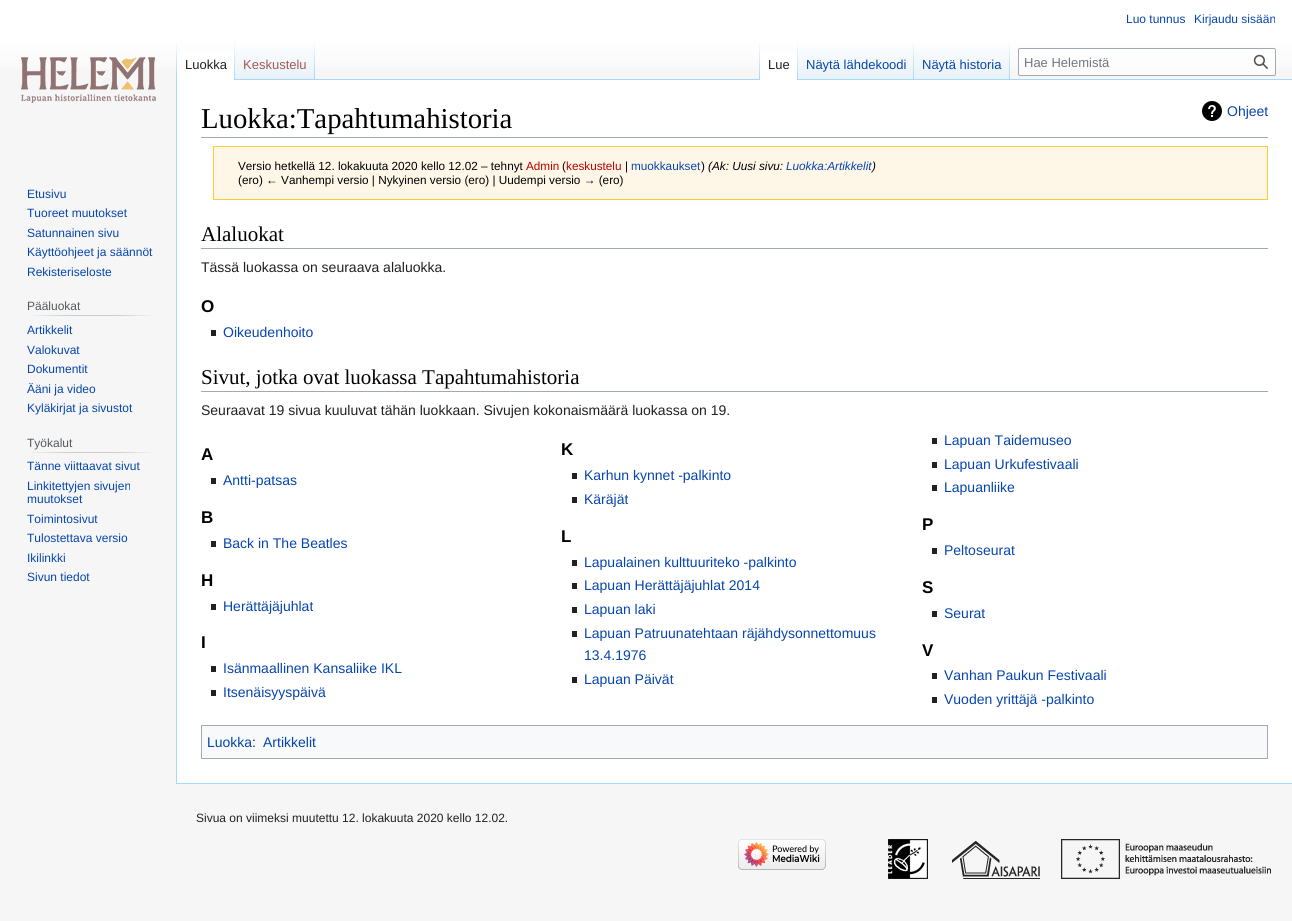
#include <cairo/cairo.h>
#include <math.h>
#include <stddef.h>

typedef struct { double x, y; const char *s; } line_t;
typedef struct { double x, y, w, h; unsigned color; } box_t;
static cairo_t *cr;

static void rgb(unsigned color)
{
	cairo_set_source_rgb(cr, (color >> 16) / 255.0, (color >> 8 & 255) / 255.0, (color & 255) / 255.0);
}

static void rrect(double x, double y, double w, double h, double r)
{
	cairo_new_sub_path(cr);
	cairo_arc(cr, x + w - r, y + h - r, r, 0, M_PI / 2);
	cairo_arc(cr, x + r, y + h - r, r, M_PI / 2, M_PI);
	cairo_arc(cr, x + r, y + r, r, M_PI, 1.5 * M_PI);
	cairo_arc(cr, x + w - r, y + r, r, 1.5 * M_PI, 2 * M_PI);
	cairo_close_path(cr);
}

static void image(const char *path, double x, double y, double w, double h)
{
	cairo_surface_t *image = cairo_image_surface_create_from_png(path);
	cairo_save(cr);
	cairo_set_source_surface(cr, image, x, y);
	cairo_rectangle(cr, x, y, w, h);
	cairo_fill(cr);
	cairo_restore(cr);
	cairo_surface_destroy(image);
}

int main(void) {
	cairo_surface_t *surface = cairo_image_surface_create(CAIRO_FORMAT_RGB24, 1292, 921);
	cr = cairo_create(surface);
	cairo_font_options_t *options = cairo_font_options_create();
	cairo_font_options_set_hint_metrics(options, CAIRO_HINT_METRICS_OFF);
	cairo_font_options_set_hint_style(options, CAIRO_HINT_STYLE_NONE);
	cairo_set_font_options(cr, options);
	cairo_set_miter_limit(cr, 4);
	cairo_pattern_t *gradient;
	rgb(0xf6f6f6);
	cairo_paint(cr);
	gradient = cairo_pattern_create_linear(646, 0, 646, 80);
	cairo_pattern_add_color_stop_rgba(gradient, 0.5, 1, 1, 1, 1);
	cairo_pattern_add_color_stop_rgba(gradient, 1, 0.965, 0.965, 0.965, 1);
	cairo_set_source(cr, gradient);
	cairo_pattern_destroy(gradient);
	cairo_rectangle(cr, 0, 0, 1292, 69);
	cairo_fill(cr);
	rgb(0xa7d7f9);
	cairo_rectangle(cr, 176, 783, 1116, 1);
	cairo_fill(cr);
	cairo_rectangle(cr, 176, 79, 1, 705);
	cairo_fill(cr);
	gradient = cairo_pattern_create_linear(177, 40, 177, 80);
	cairo_pattern_add_color_stop_rgba(gradient, 0, 0.655, 0.843, 0.976, 0);
	cairo_pattern_add_color_stop_rgba(gradient, 1, 0.655, 0.843, 0.976, 1);
	cairo_set_source(cr, gradient);
	cairo_pattern_destroy(gradient);
	cairo_rectangle(cr, 176, 40, 1, 40);
	cairo_fill(cr);
	rgb(0xffffff);
	cairo_rectangle(cr, 177, 51, 57, 29);
	cairo_fill(cr);
	gradient = cairo_pattern_create_linear(235, 40, 235, 80);
	cairo_pattern_add_color_stop_rgba(gradient, 0, 1, 1, 1, 1);
	cairo_pattern_add_color_stop_rgba(gradient, 1, 0.655, 0.843, 0.976, 1);
	cairo_set_source(cr, gradient);
	cairo_pattern_destroy(gradient);
	cairo_rectangle(cr, 234, 40, 1, 40);
	cairo_fill(cr);
	gradient = cairo_pattern_create_linear(275, 80, 275, 40);
	cairo_pattern_add_color_stop_rgba(gradient, 0, 0.467, 0.757, 0.965, 1);
	cairo_pattern_add_color_stop_rgba(gradient, 0.03, 0.91, 0.949, 0.973, 1);
	cairo_pattern_add_color_stop_rgba(gradient, 1, 1, 1, 1, 1);
	cairo_set_source(cr, gradient);
	cairo_pattern_destroy(gradient);
	cairo_rectangle(cr, 235, 46, 80, 34);
	cairo_fill(cr);
	gradient = cairo_pattern_create_linear(315, 40, 315, 80);
	cairo_pattern_add_color_stop_rgba(gradient, 0, 0.655, 0.843, 0.976, 0);
	cairo_pattern_add_color_stop_rgba(gradient, 1, 0.655, 0.843, 0.976, 1);
	cairo_set_source(cr, gradient);
	cairo_pattern_destroy(gradient);
	cairo_rectangle(cr, 314, 40, 1, 40);
	cairo_fill(cr);
	rgb(0xa7d7f9);
	cairo_rectangle(cr, 315, 79, 977, 1);
	cairo_fill(cr);
	gradient = cairo_pattern_create_linear(760, 40, 760, 80);
	cairo_pattern_add_color_stop_rgba(gradient, 0, 0.655, 0.843, 0.976, 0);
	cairo_pattern_add_color_stop_rgba(gradient, 1, 0.655, 0.843, 0.976, 1);
	cairo_set_source(cr, gradient);
	cairo_pattern_destroy(gradient);
	cairo_rectangle(cr, 759, 40, 1, 40);
	cairo_fill(cr);
	rgb(0xffffff);
	cairo_rectangle(cr, 760, 51, 37, 29);
	cairo_fill(cr);
	gradient = cairo_pattern_create_linear(798, 40, 798, 80);
	cairo_pattern_add_color_stop_rgba(gradient, 0, 1, 1, 1, 1);
	cairo_pattern_add_color_stop_rgba(gradient, 1, 0.655, 0.843, 0.976, 1);
	cairo_set_source(cr, gradient);
	cairo_pattern_destroy(gradient);
	cairo_rectangle(cr, 797, 40, 1, 40);
	cairo_fill(cr);
	gradient = cairo_pattern_create_linear(856, 80, 856, 40);
	cairo_pattern_add_color_stop_rgba(gradient, 0, 0.467, 0.757, 0.965, 1);
	cairo_pattern_add_color_stop_rgba(gradient, 0.03, 0.91, 0.949, 0.973, 1);
	cairo_pattern_add_color_stop_rgba(gradient, 1, 1, 1, 1, 1);
	cairo_set_source(cr, gradient);
	cairo_pattern_destroy(gradient);
	cairo_rectangle(cr, 798, 46, 116, 33);
	cairo_fill(cr);
	gradient = cairo_pattern_create_linear(914, 40, 914, 80);
	cairo_pattern_add_color_stop_rgba(gradient, 0, 0.655, 0.843, 0.976, 0);
	cairo_pattern_add_color_stop_rgba(gradient, 1, 0.655, 0.843, 0.976, 1);
	cairo_set_source(cr, gradient);
	cairo_pattern_destroy(gradient);
	cairo_rectangle(cr, 913, 40, 1, 40);
	cairo_fill(cr);
	gradient = cairo_pattern_create_linear(962, 80, 962, 40);
	cairo_pattern_add_color_stop_rgba(gradient, 0, 0.467, 0.757, 0.965, 1);
	cairo_pattern_add_color_stop_rgba(gradient, 0.03, 0.91, 0.949, 0.973, 1);
	cairo_pattern_add_color_stop_rgba(gradient, 1, 1, 1, 1, 1);
	cairo_set_source(cr, gradient);
	cairo_pattern_destroy(gradient);
	cairo_rectangle(cr, 914, 46, 96, 33);
	cairo_fill(cr);
	gradient = cairo_pattern_create_linear(1010, 40, 1010, 80);
	cairo_pattern_add_color_stop_rgba(gradient, 0, 0.655, 0.843, 0.976, 0);
	cairo_pattern_add_color_stop_rgba(gradient, 1, 0.655, 0.843, 0.976, 1);
	cairo_set_source(cr, gradient);
	cairo_pattern_destroy(gradient);
	cairo_rectangle(cr, 1009, 40, 1, 40);
	cairo_fill(cr);
	cairo_set_source_rgba(cr, 1, 1, 1, 0.5);
	rrect(1018.5, 48.5, 257, 27, 1.5);
	cairo_fill_preserve(cr);
	rgb(0xa2a9b1);
	cairo_set_line_width(cr, 1);
	cairo_stroke(cr);
	image("img/1.png", 1253, 54, 15, 15);
	image("img/2.png", 21, 57, 135, 46);
	gradient = cairo_pattern_create_linear(27, 316, 158, 316);
	cairo_pattern_add_color_stop_rgba(gradient, 0, 0.965, 0.965, 0.965, 1);
	cairo_pattern_add_color_stop_rgba(gradient, 0.33, 0.784, 0.8, 0.82, 1);
	cairo_pattern_add_color_stop_rgba(gradient, 0.66, 0.784, 0.8, 0.82, 1);
	cairo_pattern_add_color_stop_rgba(gradient, 1, 0.965, 0.965, 0.965, 1);
	cairo_set_source(cr, gradient);
	cairo_pattern_destroy(gradient);
	cairo_rectangle(cr, 27, 315, 131, 1);
	cairo_fill(cr);
	gradient = cairo_pattern_create_linear(27, 453, 158, 453);
	cairo_pattern_add_color_stop_rgba(gradient, 0, 0.965, 0.965, 0.965, 1);
	cairo_pattern_add_color_stop_rgba(gradient, 0.33, 0.784, 0.8, 0.82, 1);
	cairo_pattern_add_color_stop_rgba(gradient, 0.66, 0.784, 0.8, 0.82, 1);
	cairo_pattern_add_color_stop_rgba(gradient, 1, 0.965, 0.965, 0.965, 1);
	cairo_set_source(cr, gradient);
	cairo_pattern_destroy(gradient);
	cairo_rectangle(cr, 27, 452, 131, 1);
	cairo_fill(cr);
	rgb(0xffffff);
	cairo_rectangle(cr, 177, 80, 1115, 703);
	cairo_fill(cr);
	rgb(0xa2a9b1);
	cairo_rectangle(cr, 201, 137, 1067, 1);
	cairo_fill(cr);
	image("img/3.png", 1202, 101, 20, 20);
	rgb(0xfef6e7);
	cairo_rectangle(cr, 213.5, 146.5, 1054, 53);
	cairo_fill_preserve(cr);
	rgb(0xffcc33);
	cairo_stroke(cr);
	{
		static const box_t items[] = {
			{201, 248, 1067, 1, 0xa2a9b1},
			{211, 330, 5, 6, 0x202122},
			{201, 391, 1067, 1, 0xa2a9b1},
			{932, 438, 5, 6, 0x202122},
			{932, 462, 5, 6, 0x202122},
			{932, 485, 5, 6, 0x202122},
			{572, 560, 5, 6, 0x202122},
			{572, 583, 5, 6, 0x202122},
			{572, 607, 5, 6, 0x202122},
			{572, 631, 5, 6, 0x202122},
			{572, 677, 5, 6, 0x202122},
			{211, 478, 5, 6, 0x202122},
			{572, 473, 5, 6, 0x202122},
			{572, 497, 5, 6, 0x202122},
			{211, 541, 5, 6, 0x202122},
			{932, 548, 5, 6, 0x202122},
			{211, 604, 5, 6, 0x202122},
			{932, 611, 5, 6, 0x202122},
			{211, 666, 5, 6, 0x202122},
			{211, 690, 5, 6, 0x202122},
			{932, 673, 5, 6, 0x202122},
			{932, 697, 5, 6, 0x202122},
		};
		for (size_t i = 0; i < sizeof items / sizeof *items; i++) {
			rgb(items[i].color);
			cairo_rectangle(cr, items[i].x, items[i].y, items[i].w, items[i].h);
			cairo_fill(cr);
		}
	}
	rgb(0xf8f9fa);
	cairo_rectangle(cr, 201.5, 725.5, 1066, 33);
	cairo_fill_preserve(cr);
	rgb(0xa2a9b1);
	cairo_stroke(cr);
	image("img/4.png", 738, 839, 88, 31);
	image("img/5.png", 888, 839, 383, 40);
	cairo_select_font_face(cr, "Liberation Sans", CAIRO_FONT_SLANT_NORMAL, CAIRO_FONT_WEIGHT_NORMAL);
	cairo_set_font_size(cr, 12);
	rgb(0x0645ad);
	cairo_move_to(cr, 1126, 23);
	cairo_show_text(cr, "Luo tunnus");
	cairo_move_to(cr, 1194, 23);
	cairo_show_text(cr, "Kirjaudu sisään");
	cairo_set_font_size(cr, 13);
	rgb(0x202122);
	cairo_move_to(cr, 185, 69);
	cairo_show_text(cr, "Luokka");
	rgb(0xa55858);
	cairo_move_to(cr, 243, 69);
	cairo_show_text(cr, "Keskustelu");
	rgb(0x202122);
	cairo_move_to(cr, 768, 69);
	cairo_show_text(cr, "Lue");
	rgb(0x0645ad);
	cairo_move_to(cr, 806, 69);
	cairo_show_text(cr, "Näytä lähdekoodi");
	cairo_move_to(cr, 922, 69);
	cairo_show_text(cr, "Näytä historia");
	rgb(0x72777d);
	cairo_move_to(cr, 1024, 67);
	cairo_show_text(cr, "Hae Helemistä");
	cairo_set_font_size(cr, 12);
	rgb(0x0645ad);
	{
		static const line_t items[] = {
			{27, 198, "Etusivu"},
			{27, 217, "Tuoreet muutokset"},
			{27, 237, "Satunnainen sivu"},
			{27, 256, "Käyttöohjeet ja säännöt"},
			{27, 276, "Rekisteriseloste"},
		};
		for (size_t i = 0; i < sizeof items / sizeof *items; i++) {
			cairo_move_to(cr, items[i].x, items[i].y);
			cairo_show_text(cr, items[i].s);
		}
	}
	rgb(0x54595d);
	cairo_move_to(cr, 27, 310);
	cairo_show_text(cr, "Pääluokat");
	rgb(0x0645ad);
	{
		static const line_t items[] = {
			{27, 334, "Artikkelit"},
			{27, 354, "Valokuvat"},
			{27, 373, "Dokumentit"},
			{27, 393, "Ääni ja video"},
			{27, 412, "Kyläkirjat ja sivustot"},
		};
		for (size_t i = 0; i < sizeof items / sizeof *items; i++) {
			cairo_move_to(cr, items[i].x, items[i].y);
			cairo_show_text(cr, items[i].s);
		}
	}
	rgb(0x54595d);
	cairo_move_to(cr, 27, 447);
	cairo_show_text(cr, "Työkalut");
	rgb(0x0645ad);
	{
		static const line_t items[] = {
			{27, 470, "Tänne viittaavat sivut"},
			{27, 490, "Linkitettyjen sivujen"},
			{27, 503, "muutokset"},
			{27, 523, "Toimintosivut"},
			{27, 542, "Tulostettava versio"},
			{27, 562, "Ikilinkki"},
			{27, 581, "Sivun tiedot"},
		};
		for (size_t i = 0; i < sizeof items / sizeof *items; i++) {
			cairo_move_to(cr, items[i].x, items[i].y);
			cairo_show_text(cr, items[i].s);
		}
	}
	cairo_select_font_face(cr, "Liberation Serif", CAIRO_FONT_SLANT_NORMAL, CAIRO_FONT_WEIGHT_NORMAL);
	cairo_set_font_size(cr, 28.75);
	rgb(0x000000);
	cairo_move_to(cr, 201, 128);
	cairo_show_text(cr, "Luokka:Tapahtumahistoria");
	cairo_select_font_face(cr, "Liberation Sans", CAIRO_FONT_SLANT_NORMAL, CAIRO_FONT_WEIGHT_NORMAL);
	cairo_set_font_size(cr, 14);
	rgb(0x0645ad);
	cairo_move_to(cr, 1227, 116);
	cairo_show_text(cr, "Ohjeet");
	cairo_set_font_size(cr, 11.75);
	rgb(0x000000);
	cairo_move_to(cr, 238, 170);
	cairo_show_text(cr, "Versio hetkellä 12. lokakuuta 2020 kello 12.02 – tehnyt");
	rgb(0xba0000);
	cairo_move_to(cr, 526, 170);
	cairo_show_text(cr, "Admin");
	rgb(0x000000);
	cairo_move_to(cr, 562, 170);
	cairo_show_text(cr, "(");
	rgb(0xba0000);
	cairo_move_to(cr, 566, 170);
	cairo_show_text(cr, "keskustelu");
	rgb(0x000000);
	cairo_move_to(cr, 625, 170);
	cairo_show_text(cr, "|");
	rgb(0x0645ad);
	cairo_move_to(cr, 631, 170);
	cairo_show_text(cr, "muokkaukset");
	rgb(0x000000);
	cairo_move_to(cr, 701, 170);
	cairo_show_text(cr, ")");
	cairo_select_font_face(cr, "Liberation Sans", CAIRO_FONT_SLANT_ITALIC, CAIRO_FONT_WEIGHT_NORMAL);
	cairo_move_to(cr, 708, 170);
	cairo_show_text(cr, "(Ak: Uusi sivu:");
	rgb(0x0645ad);
	cairo_move_to(cr, 786, 170);
	cairo_show_text(cr, "Luokka:Artikkelit");
	rgb(0x000000);
	cairo_move_to(cr, 872, 170);
	cairo_show_text(cr, ")");
	cairo_select_font_face(cr, "Liberation Sans", CAIRO_FONT_SLANT_NORMAL, CAIRO_FONT_WEIGHT_NORMAL);
	cairo_move_to(cr, 238, 184);
	cairo_show_text(cr, "(ero) ← Vanhempi versio | Nykyinen versio (ero) | Uudempi versio → (ero)");
	cairo_select_font_face(cr, "Liberation Serif", CAIRO_FONT_SLANT_NORMAL, CAIRO_FONT_WEIGHT_NORMAL);
	cairo_set_font_size(cr, 21);
	cairo_move_to(cr, 201, 241);
	cairo_show_text(cr, "Alaluokat");
	cairo_select_font_face(cr, "Liberation Sans", CAIRO_FONT_SLANT_NORMAL, CAIRO_FONT_WEIGHT_NORMAL);
	cairo_set_font_size(cr, 14);
	rgb(0x202122);
	cairo_move_to(cr, 201, 272);
	cairo_show_text(cr, "Tässä luokassa on seuraava alaluokka.");
	cairo_select_font_face(cr, "Liberation Sans", CAIRO_FONT_SLANT_NORMAL, CAIRO_FONT_WEIGHT_BOLD);
	cairo_set_font_size(cr, 17);
	rgb(0x000000);
	cairo_move_to(cr, 201, 312);
	cairo_show_text(cr, "O");
	cairo_select_font_face(cr, "Liberation Sans", CAIRO_FONT_SLANT_NORMAL, CAIRO_FONT_WEIGHT_NORMAL);
	cairo_set_font_size(cr, 14);
	rgb(0x0645ad);
	cairo_move_to(cr, 223, 337);
	cairo_show_text(cr, "Oikeudenhoito");
	cairo_select_font_face(cr, "Liberation Serif", CAIRO_FONT_SLANT_NORMAL, CAIRO_FONT_WEIGHT_NORMAL);
	cairo_set_font_size(cr, 21);
	rgb(0x000000);
	cairo_move_to(cr, 201, 384);
	cairo_show_text(cr, "Sivut, jotka ovat luokassa Tapahtumahistoria");
	cairo_select_font_face(cr, "Liberation Sans", CAIRO_FONT_SLANT_NORMAL, CAIRO_FONT_WEIGHT_NORMAL);
	cairo_set_font_size(cr, 14);
	rgb(0x202122);
	cairo_move_to(cr, 201, 415);
	cairo_show_text(cr, "Seuraavat 19 sivua kuuluvat tähän luokkaan. Sivujen kokonaismäärä luokassa on 19.");
	cairo_select_font_face(cr, "Liberation Sans", CAIRO_FONT_SLANT_NORMAL, CAIRO_FONT_WEIGHT_BOLD);
	cairo_set_font_size(cr, 17);
	rgb(0x000000);
	cairo_move_to(cr, 561, 542);
	cairo_show_text(cr, "L");
	cairo_select_font_face(cr, "Liberation Sans", CAIRO_FONT_SLANT_NORMAL, CAIRO_FONT_WEIGHT_NORMAL);
	cairo_set_font_size(cr, 14);
	rgb(0x0645ad);
	{
		static const line_t items[] = {
			{944, 445, "Lapuan Taidemuseo"},
			{944, 469, "Lapuan Urkufestivaali"},
			{944, 492, "Lapuanliike"},
			{584, 567, "Lapualainen kulttuuriteko -palkinto"},
			{584, 590, "Lapuan Herättäjäjuhlat 2014"},
			{584, 614, "Lapuan laki"},
			{584, 638, "Lapuan Patruunatehtaan räjähdysonnettomuus"},
			{584, 660, "13.4.1976"},
			{584, 684, "Lapuan Päivät"},
		};
		for (size_t i = 0; i < sizeof items / sizeof *items; i++) {
			cairo_move_to(cr, items[i].x, items[i].y);
			cairo_show_text(cr, items[i].s);
		}
	}
	cairo_select_font_face(cr, "Liberation Sans", CAIRO_FONT_SLANT_NORMAL, CAIRO_FONT_WEIGHT_BOLD);
	cairo_set_font_size(cr, 17);
	rgb(0x000000);
	cairo_move_to(cr, 201, 460);
	cairo_show_text(cr, "A");
	cairo_select_font_face(cr, "Liberation Sans", CAIRO_FONT_SLANT_NORMAL, CAIRO_FONT_WEIGHT_NORMAL);
	cairo_set_font_size(cr, 14);
	rgb(0x0645ad);
	cairo_move_to(cr, 223, 485);
	cairo_show_text(cr, "Antti-patsas");
	cairo_select_font_face(cr, "Liberation Sans", CAIRO_FONT_SLANT_NORMAL, CAIRO_FONT_WEIGHT_BOLD);
	cairo_set_font_size(cr, 17);
	rgb(0x000000);
	cairo_move_to(cr, 561, 455);
	cairo_show_text(cr, "K");
	cairo_select_font_face(cr, "Liberation Sans", CAIRO_FONT_SLANT_NORMAL, CAIRO_FONT_WEIGHT_NORMAL);
	cairo_set_font_size(cr, 14);
	rgb(0x0645ad);
	cairo_move_to(cr, 584, 480);
	cairo_show_text(cr, "Karhun kynnet -palkinto");
	cairo_move_to(cr, 584, 504);
	cairo_show_text(cr, "Käräjät");
	cairo_select_font_face(cr, "Liberation Sans", CAIRO_FONT_SLANT_NORMAL, CAIRO_FONT_WEIGHT_BOLD);
	cairo_set_font_size(cr, 17);
	rgb(0x000000);
	cairo_move_to(cr, 201, 523);
	cairo_show_text(cr, "B");
	cairo_select_font_face(cr, "Liberation Sans", CAIRO_FONT_SLANT_NORMAL, CAIRO_FONT_WEIGHT_NORMAL);
	cairo_set_font_size(cr, 14);
	rgb(0x0645ad);
	cairo_move_to(cr, 223, 548);
	cairo_show_text(cr, "Back in The Beatles");
	cairo_select_font_face(cr, "Liberation Sans", CAIRO_FONT_SLANT_NORMAL, CAIRO_FONT_WEIGHT_BOLD);
	cairo_set_font_size(cr, 17);
	rgb(0x000000);
	cairo_move_to(cr, 922, 530);
	cairo_show_text(cr, "P");
	cairo_select_font_face(cr, "Liberation Sans", CAIRO_FONT_SLANT_NORMAL, CAIRO_FONT_WEIGHT_NORMAL);
	cairo_set_font_size(cr, 14);
	rgb(0x0645ad);
	cairo_move_to(cr, 944, 555);
	cairo_show_text(cr, "Peltoseurat");
	cairo_select_font_face(cr, "Liberation Sans", CAIRO_FONT_SLANT_NORMAL, CAIRO_FONT_WEIGHT_BOLD);
	cairo_set_font_size(cr, 17);
	rgb(0x000000);
	cairo_move_to(cr, 201, 586);
	cairo_show_text(cr, "H");
	cairo_select_font_face(cr, "Liberation Sans", CAIRO_FONT_SLANT_NORMAL, CAIRO_FONT_WEIGHT_NORMAL);
	cairo_set_font_size(cr, 14);
	rgb(0x0645ad);
	cairo_move_to(cr, 223, 611);
	cairo_show_text(cr, "Herättäjäjuhlat");
	cairo_select_font_face(cr, "Liberation Sans", CAIRO_FONT_SLANT_NORMAL, CAIRO_FONT_WEIGHT_BOLD);
	cairo_set_font_size(cr, 17);
	rgb(0x000000);
	cairo_move_to(cr, 922, 593);
	cairo_show_text(cr, "S");
	cairo_select_font_face(cr, "Liberation Sans", CAIRO_FONT_SLANT_NORMAL, CAIRO_FONT_WEIGHT_NORMAL);
	cairo_set_font_size(cr, 14);
	rgb(0x0645ad);
	cairo_move_to(cr, 944, 618);
	cairo_show_text(cr, "Seurat");
	cairo_select_font_face(cr, "Liberation Sans", CAIRO_FONT_SLANT_NORMAL, CAIRO_FONT_WEIGHT_BOLD);
	cairo_set_font_size(cr, 17);
	rgb(0x000000);
	cairo_move_to(cr, 201, 648);
	cairo_show_text(cr, "I");
	cairo_select_font_face(cr, "Liberation Sans", CAIRO_FONT_SLANT_NORMAL, CAIRO_FONT_WEIGHT_NORMAL);
	cairo_set_font_size(cr, 14);
	rgb(0x0645ad);
	cairo_move_to(cr, 223, 673);
	cairo_show_text(cr, "Isänmaallinen Kansaliike IKL");
	cairo_move_to(cr, 223, 697);
	cairo_show_text(cr, "Itsenäisyyspäivä");
	cairo_select_font_face(cr, "Liberation Sans", CAIRO_FONT_SLANT_NORMAL, CAIRO_FONT_WEIGHT_BOLD);
	cairo_set_font_size(cr, 17);
	rgb(0x000000);
	cairo_move_to(cr, 922, 656);
	cairo_show_text(cr, "V");
	cairo_select_font_face(cr, "Liberation Sans", CAIRO_FONT_SLANT_NORMAL, CAIRO_FONT_WEIGHT_NORMAL);
	cairo_set_font_size(cr, 14);
	rgb(0x0645ad);
	{
		static const line_t items[] = {
			{944, 680, "Vanhan Paukun Festivaali"},
			{944, 704, "Vuoden yrittäjä -palkinto"},
			{207, 747, "Luokka"},
		};
		for (size_t i = 0; i < sizeof items / sizeof *items; i++) {
			cairo_move_to(cr, items[i].x, items[i].y);
			cairo_show_text(cr, items[i].s);
		}
	}
	rgb(0x202122);
	cairo_move_to(cr, 252, 747);
	cairo_show_text(cr, ":");
	rgb(0x0645ad);
	cairo_move_to(cr, 263, 747);
	cairo_show_text(cr, "Artikkelit");
	cairo_set_font_size(cr, 12);
	rgb(0x202122);
	cairo_move_to(cr, 196, 822);
	cairo_show_text(cr, "Sivua on viimeksi muutettu 12. lokakuuta 2020 kello 12.02.");
	cairo_surface_write_to_png(surface, "page.png");
	cairo_font_options_destroy(options);
	cairo_destroy(cr);
	cairo_surface_destroy(surface);
	return 0;
}
